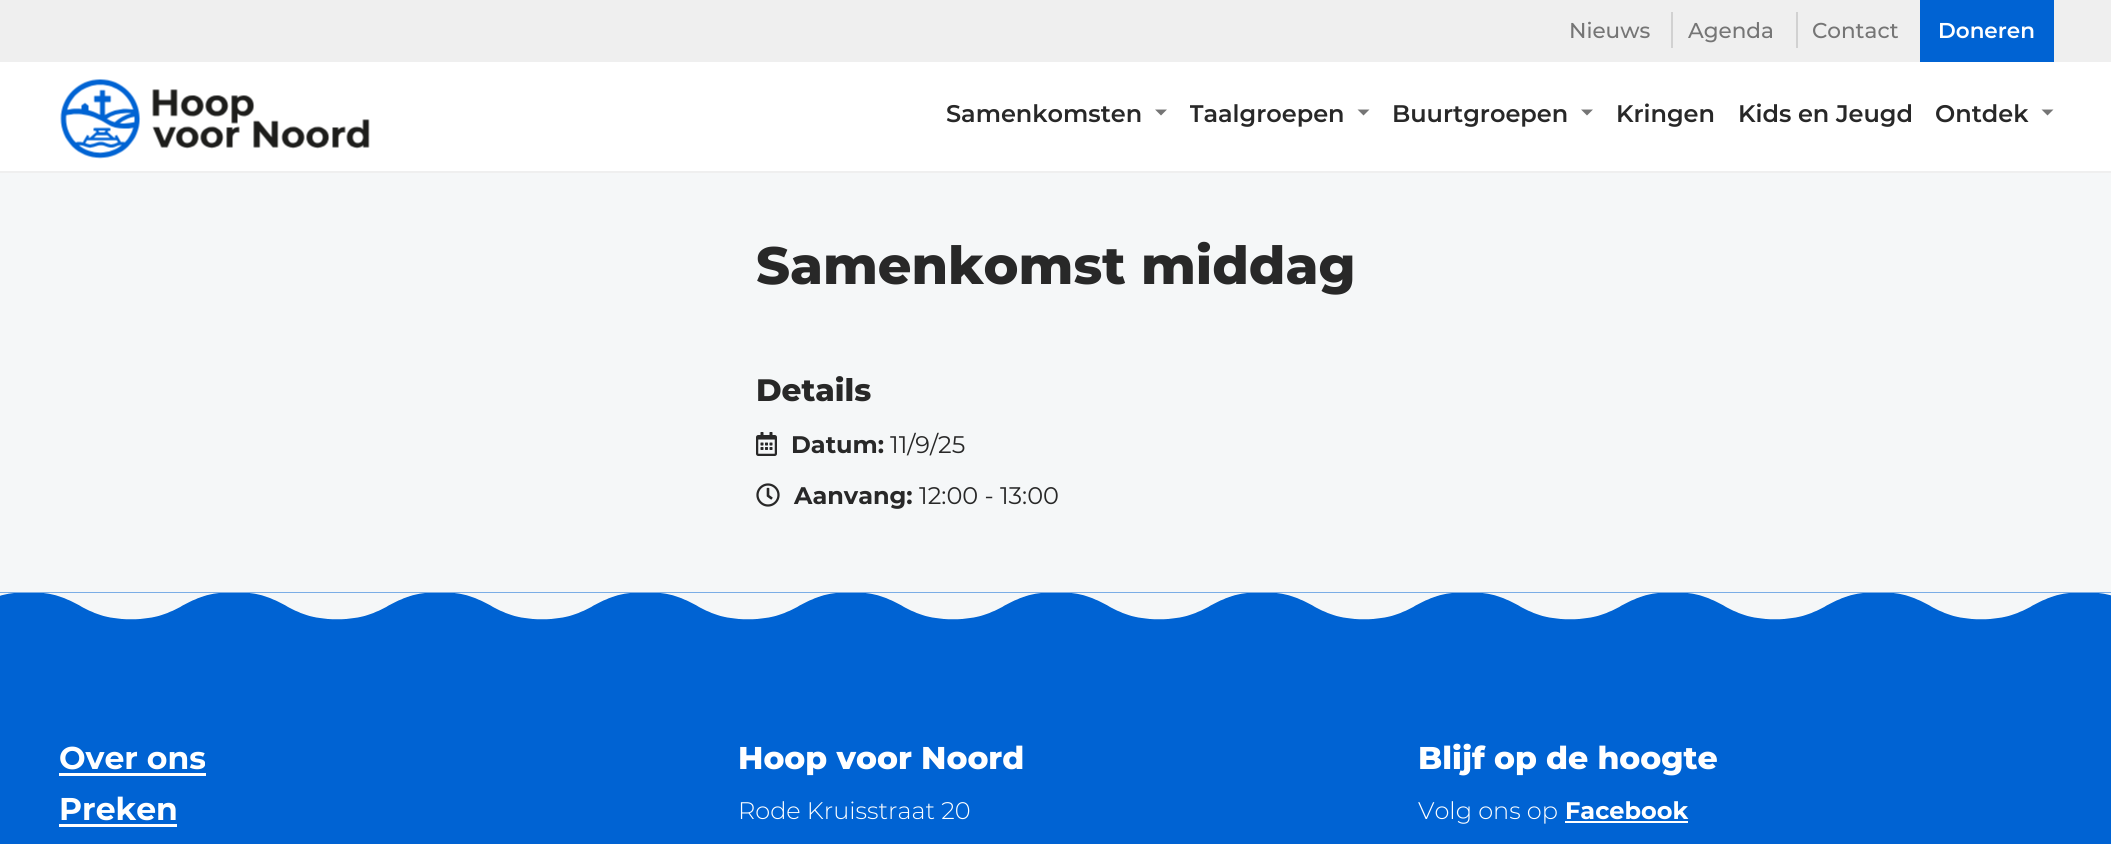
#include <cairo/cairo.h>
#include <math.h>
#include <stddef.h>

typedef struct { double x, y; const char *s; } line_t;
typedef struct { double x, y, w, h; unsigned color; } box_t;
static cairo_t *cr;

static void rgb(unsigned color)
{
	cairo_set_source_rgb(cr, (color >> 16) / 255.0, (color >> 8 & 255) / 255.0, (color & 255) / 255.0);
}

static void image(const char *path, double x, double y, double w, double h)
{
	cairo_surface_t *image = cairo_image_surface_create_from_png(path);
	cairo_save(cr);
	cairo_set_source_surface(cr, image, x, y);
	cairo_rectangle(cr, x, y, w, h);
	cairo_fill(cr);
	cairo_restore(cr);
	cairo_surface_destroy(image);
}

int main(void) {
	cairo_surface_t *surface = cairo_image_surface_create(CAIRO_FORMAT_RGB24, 2111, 844);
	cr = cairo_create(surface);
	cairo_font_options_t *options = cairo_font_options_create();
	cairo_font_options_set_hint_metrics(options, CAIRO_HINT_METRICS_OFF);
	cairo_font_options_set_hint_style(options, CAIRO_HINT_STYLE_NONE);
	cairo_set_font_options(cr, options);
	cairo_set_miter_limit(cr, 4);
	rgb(0xf5f7f8);
	cairo_paint(cr);
	{
		static const box_t items[] = {
			{0, 62, 2111, 109, 0xffffff},
			{0, 171, 2111, 2, 0xefefef},
			{0, 0, 2111, 62, 0xefefef},
			{1671, 12, 2, 36, 0xd1d1d1},
			{1796, 12, 2, 36, 0xd1d1d1},
			{1920, 0, 134, 62, 0x0063d3},
		};
		for (size_t i = 0; i < sizeof items / sizeof *items; i++) {
			rgb(items[i].color);
			cairo_rectangle(cr, items[i].x, items[i].y, items[i].w, items[i].h);
			cairo_fill(cr);
		}
	}
	image("img/1.png", 60, 79, 310, 80);
	rgb(0x757575);
	cairo_new_path(cr);
	cairo_move_to(cr, 1155, 109.5);
	cairo_line_to(cr, 1167, 109.5);
	cairo_line_to(cr, 1161, 115.5);
	cairo_close_path(cr);
	cairo_fill(cr);
	cairo_new_path(cr);
	cairo_move_to(cr, 1357.5, 109.5);
	cairo_line_to(cr, 1369.5, 109.5);
	cairo_line_to(cr, 1363.5, 115.5);
	cairo_close_path(cr);
	cairo_fill(cr);
	cairo_new_path(cr);
	cairo_move_to(cr, 1581, 109.5);
	cairo_line_to(cr, 1593, 109.5);
	cairo_line_to(cr, 1587, 115.5);
	cairo_close_path(cr);
	cairo_fill(cr);
	cairo_new_path(cr);
	cairo_move_to(cr, 2041.5, 109.5);
	cairo_line_to(cr, 2053.5, 109.5);
	cairo_line_to(cr, 2047.5, 115.5);
	cairo_close_path(cr);
	cairo_fill(cr);
	image("img/2.png", 756, 432, 21, 24);
	image("img/3.png", 756, 483, 24, 24);
	rgb(0x0063d3);
	cairo_rectangle(cr, 0, 620, 2111, 224);
	cairo_fill(cr);
	image("img/4.png", 0, 592, 2111, 28);
	{
		static const box_t items[] = {
			{59, 773, 147, 3, 0xffffff},
			{59, 824, 118, 3, 0xffffff},
			{1565, 821, 123, 2, 0xffffff},
		};
		for (size_t i = 0; i < sizeof items / sizeof *items; i++) {
			rgb(items[i].color);
			cairo_rectangle(cr, items[i].x, items[i].y, items[i].w, items[i].h);
			cairo_fill(cr);
		}
	}
	cairo_select_font_face(cr, "Montserrat Medium", CAIRO_FONT_SLANT_NORMAL, CAIRO_FONT_WEIGHT_NORMAL);
	cairo_set_font_size(cr, 21.5);
	rgb(0x757575);
	{
		static const line_t items[] = {
			{1569, 38, "Nieuws"},
			{1688, 38, "Agenda"},
			{1812, 38, "Contact"},
		};
		for (size_t i = 0; i < sizeof items / sizeof *items; i++) {
			cairo_move_to(cr, items[i].x, items[i].y);
			cairo_show_text(cr, items[i].s);
		}
	}
	cairo_select_font_face(cr, "Montserrat SemiBold", CAIRO_FONT_SLANT_NORMAL, CAIRO_FONT_WEIGHT_NORMAL);
	rgb(0xffffff);
	cairo_move_to(cr, 1938, 38);
	cairo_show_text(cr, "Doneren");
	cairo_set_font_size(cr, 24);
	rgb(0x282828);
	cairo_move_to(cr, 946, 122);
	cairo_show_text(cr, "Samenkomsten");
	cairo_save(cr);
	cairo_rectangle(cr, 1190, 96, 180, 36);
	cairo_clip(cr);
	cairo_move_to(cr, 1189, 122);
	cairo_show_text(cr, "Taalgroepen");
	cairo_restore(cr);
	{
		static const line_t items[] = {
			{1392, 122, "Buurtgroepen"},
			{1616, 122, "Kringen"},
			{1738, 122, "Kids en Jeugd"},
			{1935, 122, "Ontdek"},
		};
		for (size_t i = 0; i < sizeof items / sizeof *items; i++) {
			cairo_move_to(cr, items[i].x, items[i].y);
			cairo_show_text(cr, items[i].s);
		}
	}
	cairo_select_font_face(cr, "Montserrat ExtraBold", CAIRO_FONT_SLANT_NORMAL, CAIRO_FONT_WEIGHT_NORMAL);
	cairo_set_font_size(cr, 52.5);
	cairo_move_to(cr, 756, 284);
	cairo_show_text(cr, "Samenkomst middag");
	cairo_set_font_size(cr, 31);
	cairo_move_to(cr, 756, 401);
	cairo_show_text(cr, "Details");
	cairo_select_font_face(cr, "Montserrat", CAIRO_FONT_SLANT_NORMAL, CAIRO_FONT_WEIGHT_BOLD);
	cairo_set_font_size(cr, 24);
	cairo_move_to(cr, 791, 453);
	cairo_show_text(cr, "Datum:");
	cairo_select_font_face(cr, "Montserrat", CAIRO_FONT_SLANT_NORMAL, CAIRO_FONT_WEIGHT_NORMAL);
	cairo_move_to(cr, 890, 453);
	cairo_show_text(cr, "11/9/25");
	cairo_select_font_face(cr, "Montserrat", CAIRO_FONT_SLANT_NORMAL, CAIRO_FONT_WEIGHT_BOLD);
	cairo_move_to(cr, 794, 504);
	cairo_show_text(cr, "Aanvang:");
	cairo_select_font_face(cr, "Montserrat", CAIRO_FONT_SLANT_NORMAL, CAIRO_FONT_WEIGHT_NORMAL);
	cairo_move_to(cr, 919, 504);
	cairo_show_text(cr, "12:00 - 13:00");
	cairo_select_font_face(cr, "Montserrat", CAIRO_FONT_SLANT_NORMAL, CAIRO_FONT_WEIGHT_BOLD);
	cairo_set_font_size(cr, 31.5);
	rgb(0xffffff);
	cairo_move_to(cr, 59, 769);
	cairo_show_text(cr, "Over ons");
	cairo_move_to(cr, 59, 820);
	cairo_show_text(cr, "Preken");
	cairo_select_font_face(cr, "Montserrat ExtraBold", CAIRO_FONT_SLANT_NORMAL, CAIRO_FONT_WEIGHT_NORMAL);
	cairo_move_to(cr, 738, 769);
	cairo_show_text(cr, "Hoop voor Noord");
	cairo_select_font_face(cr, "Montserrat Light", CAIRO_FONT_SLANT_NORMAL, CAIRO_FONT_WEIGHT_NORMAL);
	cairo_set_font_size(cr, 24);
	cairo_move_to(cr, 738, 819);
	cairo_show_text(cr, "Rode Kruisstraat 20");
	cairo_select_font_face(cr, "Montserrat ExtraBold", CAIRO_FONT_SLANT_NORMAL, CAIRO_FONT_WEIGHT_NORMAL);
	cairo_set_font_size(cr, 31.5);
	cairo_move_to(cr, 1418, 769);
	cairo_show_text(cr, "Blijf op de hoogte");
	cairo_select_font_face(cr, "Montserrat Light", CAIRO_FONT_SLANT_NORMAL, CAIRO_FONT_WEIGHT_NORMAL);
	cairo_set_font_size(cr, 24);
	cairo_move_to(cr, 1418, 819);
	cairo_show_text(cr, "Volg ons op");
	cairo_select_font_face(cr, "Montserrat", CAIRO_FONT_SLANT_NORMAL, CAIRO_FONT_WEIGHT_BOLD);
	cairo_move_to(cr, 1565, 819);
	cairo_show_text(cr, "Facebook");
	cairo_surface_write_to_png(surface, "page.png");
	cairo_font_options_destroy(options);
	cairo_destroy(cr);
	cairo_surface_destroy(surface);
	return 0;
}
